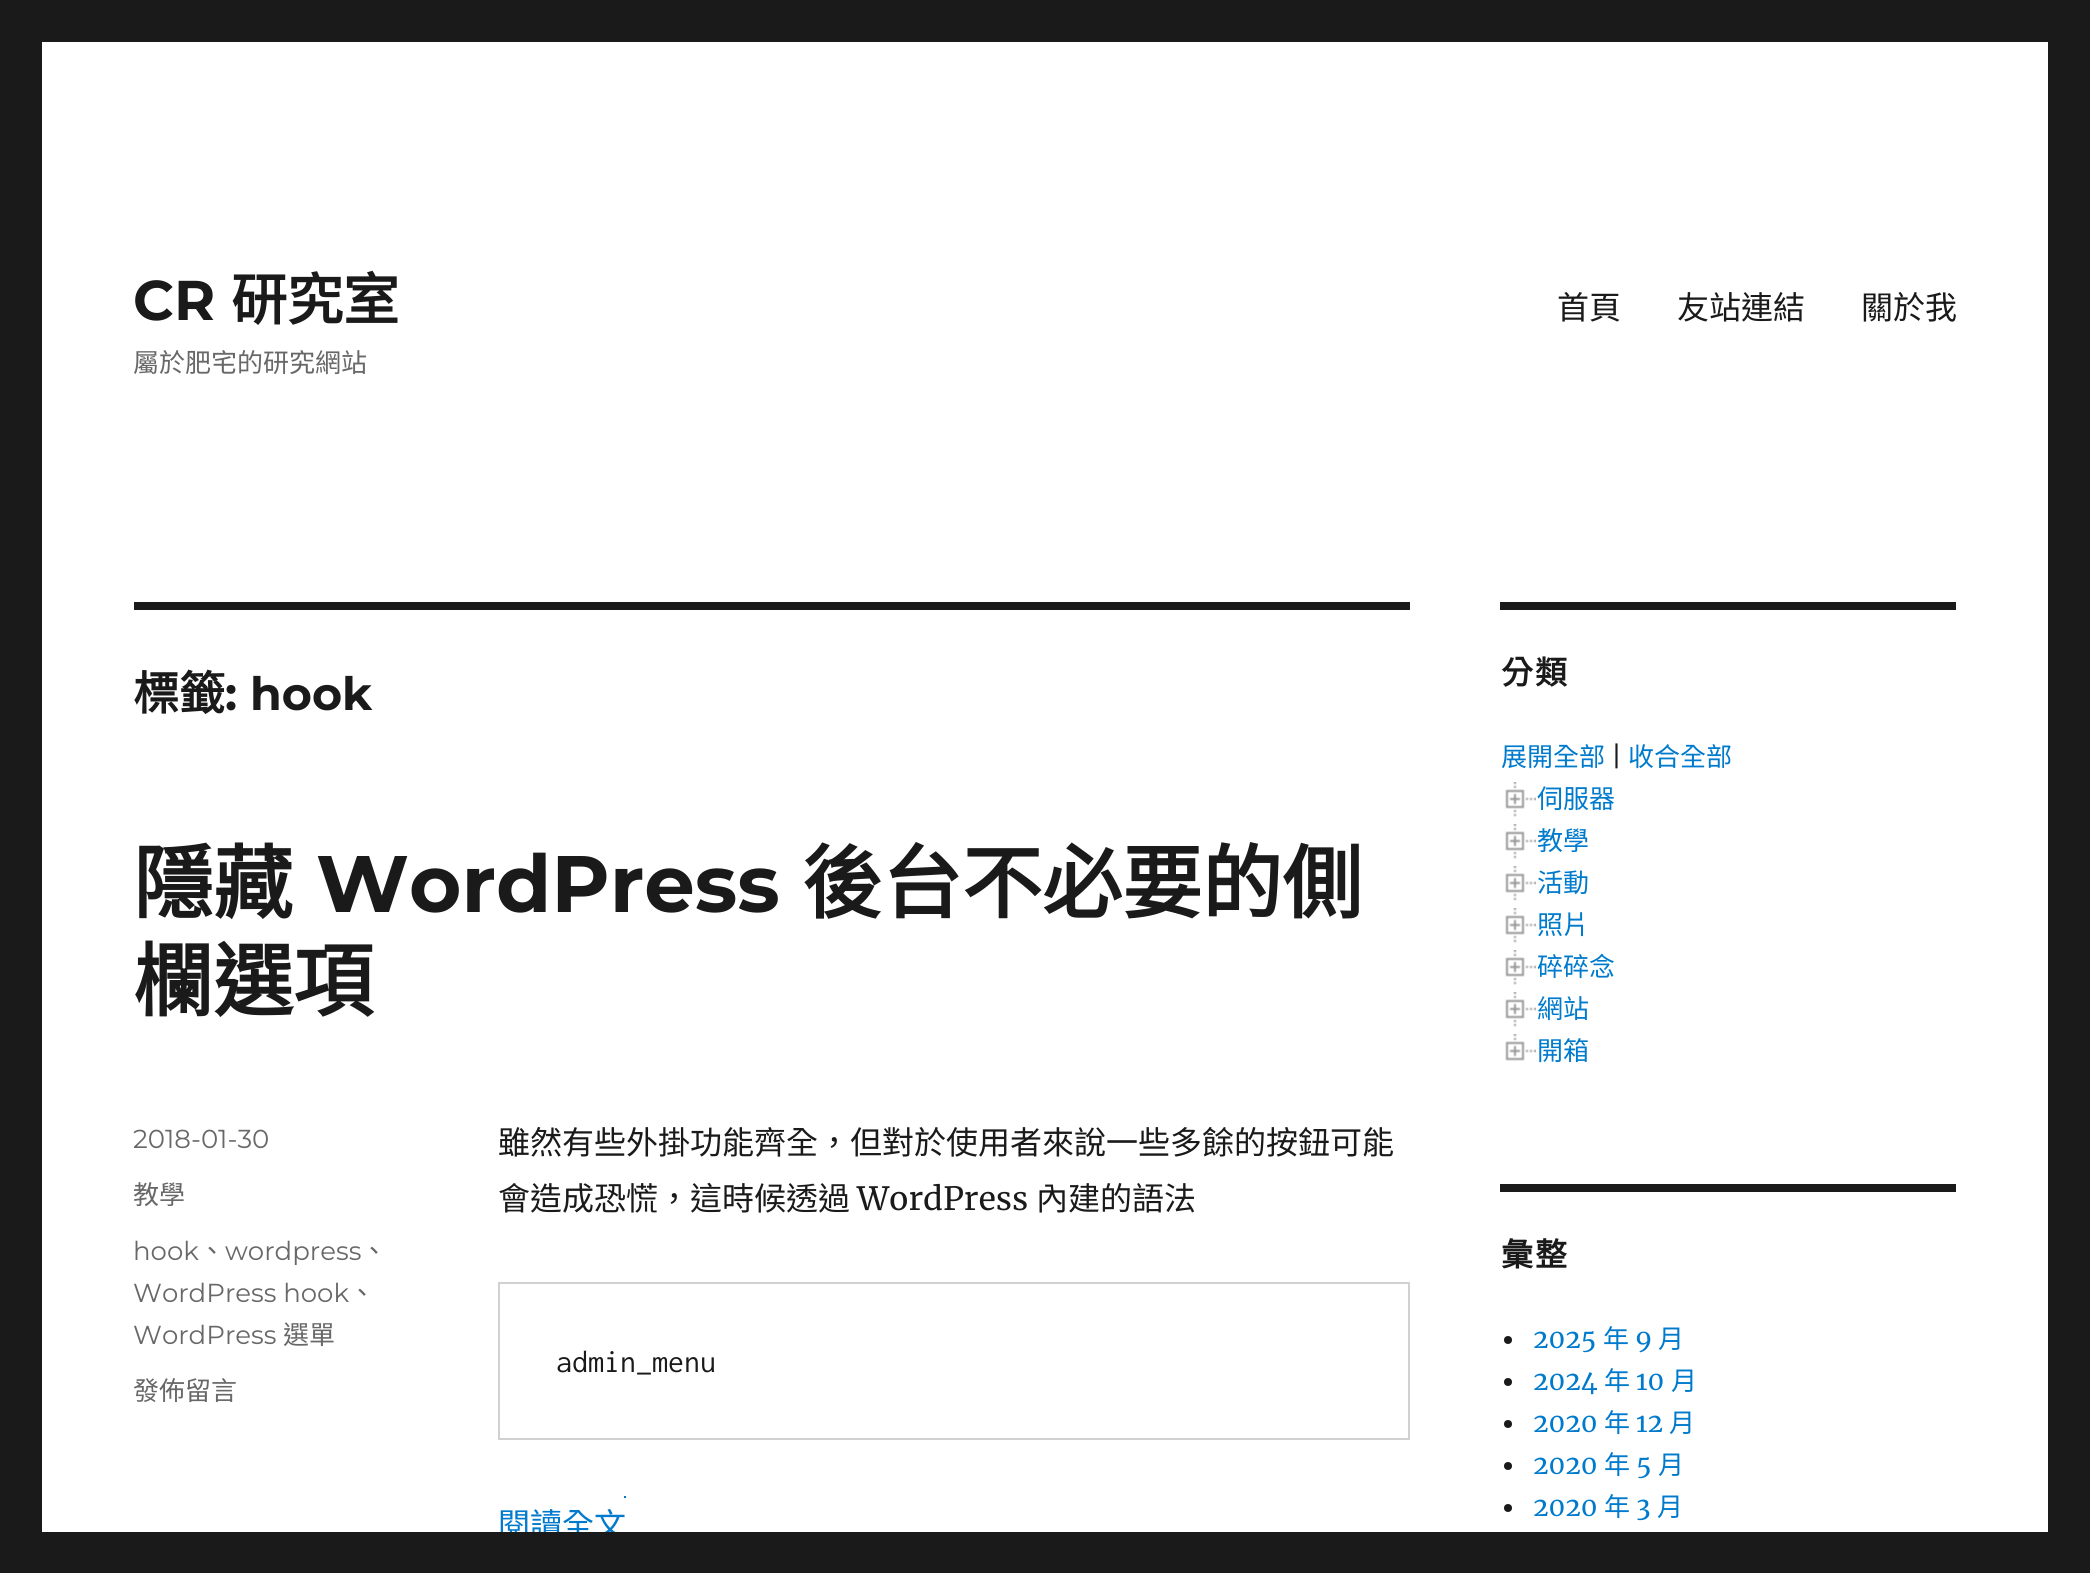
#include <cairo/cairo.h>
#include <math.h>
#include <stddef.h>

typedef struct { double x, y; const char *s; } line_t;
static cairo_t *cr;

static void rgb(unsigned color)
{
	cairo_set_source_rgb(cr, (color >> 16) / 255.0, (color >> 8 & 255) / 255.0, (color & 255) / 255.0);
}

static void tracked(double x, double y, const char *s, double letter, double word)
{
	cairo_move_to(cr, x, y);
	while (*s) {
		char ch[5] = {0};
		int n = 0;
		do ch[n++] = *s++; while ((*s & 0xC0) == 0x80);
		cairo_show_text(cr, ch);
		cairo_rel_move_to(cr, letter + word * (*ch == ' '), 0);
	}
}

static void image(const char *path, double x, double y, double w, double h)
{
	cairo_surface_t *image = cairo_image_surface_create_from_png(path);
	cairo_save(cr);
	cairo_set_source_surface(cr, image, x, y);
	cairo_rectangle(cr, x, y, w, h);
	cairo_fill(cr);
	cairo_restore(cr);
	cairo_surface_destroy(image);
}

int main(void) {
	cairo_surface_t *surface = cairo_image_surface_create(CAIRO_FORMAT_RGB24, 2090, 1573);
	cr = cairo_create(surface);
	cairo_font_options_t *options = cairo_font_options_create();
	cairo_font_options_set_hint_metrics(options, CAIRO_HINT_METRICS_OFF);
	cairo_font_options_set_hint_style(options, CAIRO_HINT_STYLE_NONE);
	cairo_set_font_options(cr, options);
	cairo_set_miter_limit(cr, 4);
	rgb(0x1a1a1a);
	cairo_paint(cr);
	rgb(0xffffff);
	cairo_rectangle(cr, 42, 42, 2006, 1490);
	cairo_fill(cr);
	rgb(0x1a1a1a);
	cairo_rectangle(cr, 134, 602, 1276, 8);
	cairo_fill(cr);
	cairo_rectangle(cr, 499, 1283, 910, 156);
	rgb(0xd1d1d1);
	cairo_stroke(cr);
	rgb(0x007acc);
	cairo_rectangle(cr, 624, 1496, 2, 2);
	cairo_fill(cr);
	rgb(0x1a1a1a);
	cairo_rectangle(cr, 1500, 602, 456, 8);
	cairo_fill(cr);
	image("img/1.png", 1505, 782, 31, 35);
	image("img/1.png", 1505, 824, 31, 35);
	image("img/1.png", 1505, 866, 31, 35);
	image("img/1.png", 1505, 908, 31, 35);
	image("img/1.png", 1505, 950, 31, 35);
	image("img/1.png", 1505, 992, 31, 35);
	image("img/2.png", 1505, 1034, 31, 27);
	cairo_rectangle(cr, 1500, 1184, 456, 8);
	cairo_fill(cr);
	cairo_arc(cr, 1508, 1340, 4, 0, 2 * M_PI);
	cairo_fill(cr);
	cairo_arc(cr, 1508, 1382, 4, 0, 2 * M_PI);
	cairo_fill(cr);
	cairo_arc(cr, 1508, 1424, 4, 0, 2 * M_PI);
	cairo_fill(cr);
	cairo_arc(cr, 1508, 1466, 4, 0, 2 * M_PI);
	cairo_fill(cr);
	cairo_arc(cr, 1508, 1508, 4, 0, 2 * M_PI);
	cairo_fill(cr);
	cairo_select_font_face(cr, "Montserrat Thin", CAIRO_FONT_SLANT_NORMAL, CAIRO_FONT_WEIGHT_NORMAL);
	cairo_set_font_size(cr, 56);
	cairo_move_to(cr, 133, 320);
	cairo_show_text(cr, "CR");
	cairo_select_font_face(cr, "Noto Sans CJK TC", CAIRO_FONT_SLANT_NORMAL, CAIRO_FONT_WEIGHT_BOLD);
	cairo_move_to(cr, 231, 320);
	cairo_show_text(cr, "研究室");
	cairo_select_font_face(cr, "Noto Sans CJK TC", CAIRO_FONT_SLANT_NORMAL, CAIRO_FONT_WEIGHT_NORMAL);
	cairo_set_font_size(cr, 26);
	rgb(0x686868);
	cairo_move_to(cr, 133, 372);
	cairo_show_text(cr, "屬於肥宅的研究網站");
	cairo_set_font_size(cr, 32);
	rgb(0x1a1a1a);
	{
		static const line_t items[] = {
			{1557, 319, "首頁"},
			{1677, 319, "友站連結"},
			{1861, 319, "關於我"},
		};
		for (size_t i = 0; i < sizeof items / sizeof *items; i++) {
			cairo_move_to(cr, items[i].x, items[i].y);
			cairo_show_text(cr, items[i].s);
		}
	}
	cairo_select_font_face(cr, "Noto Sans CJK TC", CAIRO_FONT_SLANT_NORMAL, CAIRO_FONT_WEIGHT_BOLD);
	cairo_set_font_size(cr, 46);
	cairo_move_to(cr, 133, 710);
	cairo_show_text(cr, "標籤");
	cairo_select_font_face(cr, "Montserrat Thin", CAIRO_FONT_SLANT_NORMAL, CAIRO_FONT_WEIGHT_NORMAL);
	cairo_move_to(cr, 225, 710);
	cairo_show_text(cr, ": hook");
	cairo_select_font_face(cr, "Noto Sans CJK TC", CAIRO_FONT_SLANT_NORMAL, CAIRO_FONT_WEIGHT_BOLD);
	cairo_set_font_size(cr, 80);
	cairo_move_to(cr, 133, 912);
	cairo_show_text(cr, "隱藏");
	cairo_select_font_face(cr, "Montserrat Thin", CAIRO_FONT_SLANT_NORMAL, CAIRO_FONT_WEIGHT_NORMAL);
	cairo_move_to(cr, 316, 912);
	cairo_show_text(cr, "WordPress");
	cairo_select_font_face(cr, "Noto Sans CJK TC", CAIRO_FONT_SLANT_NORMAL, CAIRO_FONT_WEIGHT_BOLD);
	cairo_move_to(cr, 802, 912);
	cairo_show_text(cr, "後台不必要的側");
	cairo_move_to(cr, 133, 1010);
	cairo_show_text(cr, "欄選項");
	cairo_select_font_face(cr, "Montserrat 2 Thin", CAIRO_FONT_SLANT_NORMAL, CAIRO_FONT_WEIGHT_NORMAL);
	cairo_set_font_size(cr, 26);
	rgb(0x686868);
	cairo_move_to(cr, 133, 1148);
	cairo_show_text(cr, "2018-01-30");
	cairo_select_font_face(cr, "Noto Sans CJK TC", CAIRO_FONT_SLANT_NORMAL, CAIRO_FONT_WEIGHT_NORMAL);
	cairo_move_to(cr, 133, 1204);
	cairo_show_text(cr, "教學");
	cairo_select_font_face(cr, "Montserrat 2 Thin", CAIRO_FONT_SLANT_NORMAL, CAIRO_FONT_WEIGHT_NORMAL);
	cairo_move_to(cr, 133, 1260);
	cairo_show_text(cr, "hook");
	cairo_select_font_face(cr, "Noto Sans CJK TC", CAIRO_FONT_SLANT_NORMAL, CAIRO_FONT_WEIGHT_NORMAL);
	cairo_move_to(cr, 199, 1260);
	cairo_show_text(cr, "、");
	cairo_select_font_face(cr, "Montserrat 2 Thin", CAIRO_FONT_SLANT_NORMAL, CAIRO_FONT_WEIGHT_NORMAL);
	cairo_move_to(cr, 225, 1260);
	cairo_show_text(cr, "wordpress");
	cairo_select_font_face(cr, "Noto Sans CJK TC", CAIRO_FONT_SLANT_NORMAL, CAIRO_FONT_WEIGHT_NORMAL);
	cairo_move_to(cr, 361, 1260);
	cairo_show_text(cr, "、");
	cairo_select_font_face(cr, "Montserrat 2 Thin", CAIRO_FONT_SLANT_NORMAL, CAIRO_FONT_WEIGHT_NORMAL);
	cairo_move_to(cr, 133, 1302);
	cairo_show_text(cr, "WordPress hook");
	cairo_select_font_face(cr, "Noto Sans CJK TC", CAIRO_FONT_SLANT_NORMAL, CAIRO_FONT_WEIGHT_NORMAL);
	cairo_move_to(cr, 349, 1302);
	cairo_show_text(cr, "、");
	cairo_select_font_face(cr, "Montserrat 2 Thin", CAIRO_FONT_SLANT_NORMAL, CAIRO_FONT_WEIGHT_NORMAL);
	cairo_move_to(cr, 133, 1344);
	cairo_show_text(cr, "WordPress");
	cairo_select_font_face(cr, "Noto Sans CJK TC", CAIRO_FONT_SLANT_NORMAL, CAIRO_FONT_WEIGHT_NORMAL);
	cairo_move_to(cr, 283, 1344);
	cairo_show_text(cr, "選單");
	cairo_move_to(cr, 133, 1400);
	cairo_show_text(cr, "發佈留言");
	cairo_set_font_size(cr, 32);
	rgb(0x1a1a1a);
	cairo_move_to(cr, 498, 1154);
	cairo_show_text(cr, "雖然有些外掛功能齊全，但對於使用者來說一些多餘的按鈕可能");
	cairo_move_to(cr, 498, 1210);
	cairo_show_text(cr, "會造成恐慌，這時候透過");
	cairo_select_font_face(cr, "Merriweather", CAIRO_FONT_SLANT_NORMAL, CAIRO_FONT_WEIGHT_NORMAL);
	cairo_move_to(cr, 857, 1210);
	cairo_show_text(cr, "WordPress");
	cairo_select_font_face(cr, "Noto Sans CJK TC", CAIRO_FONT_SLANT_NORMAL, CAIRO_FONT_WEIGHT_NORMAL);
	cairo_move_to(cr, 1036, 1210);
	cairo_show_text(cr, "內建的語法");
	cairo_select_font_face(cr, "Inconsolata", CAIRO_FONT_SLANT_NORMAL, CAIRO_FONT_WEIGHT_NORMAL);
	cairo_move_to(cr, 556, 1372);
	cairo_show_text(cr, "admin_menu");
	cairo_select_font_face(cr, "Noto Sans CJK TC", CAIRO_FONT_SLANT_NORMAL, CAIRO_FONT_WEIGHT_NORMAL);
	rgb(0x007acc);
	cairo_move_to(cr, 498, 1536);
	cairo_show_text(cr, "閱讀全文");
	cairo_select_font_face(cr, "Noto Sans CJK TC", CAIRO_FONT_SLANT_NORMAL, CAIRO_FONT_WEIGHT_BOLD);
	rgb(0x1a1a1a);
	tracked(1501, 684, "分類", 2, 0);
	cairo_select_font_face(cr, "Noto Sans CJK TC", CAIRO_FONT_SLANT_NORMAL, CAIRO_FONT_WEIGHT_NORMAL);
	cairo_set_font_size(cr, 26);
	rgb(0x007acc);
	cairo_move_to(cr, 1501, 766);
	cairo_show_text(cr, "展開全部");
	cairo_select_font_face(cr, "Merriweather", CAIRO_FONT_SLANT_NORMAL, CAIRO_FONT_WEIGHT_NORMAL);
	rgb(0x1a1a1a);
	cairo_move_to(cr, 1611, 766);
	cairo_show_text(cr, "|");
	cairo_select_font_face(cr, "Noto Sans CJK TC", CAIRO_FONT_SLANT_NORMAL, CAIRO_FONT_WEIGHT_NORMAL);
	rgb(0x007acc);
	{
		static const line_t items[] = {
			{1628, 766, "收合全部"},
			{1537, 808, "伺服器"},
			{1537, 850, "教學"},
			{1537, 892, "活動"},
			{1537, 934, "照片"},
			{1537, 976, "碎碎念"},
			{1537, 1018, "網站"},
			{1537, 1060, "開箱"},
		};
		for (size_t i = 0; i < sizeof items / sizeof *items; i++) {
			cairo_move_to(cr, items[i].x, items[i].y);
			cairo_show_text(cr, items[i].s);
		}
	}
	cairo_select_font_face(cr, "Noto Sans CJK TC", CAIRO_FONT_SLANT_NORMAL, CAIRO_FONT_WEIGHT_BOLD);
	cairo_set_font_size(cr, 32);
	rgb(0x1a1a1a);
	tracked(1501, 1266, "彙整", 2, 0);
	cairo_select_font_face(cr, "Merriweather", CAIRO_FONT_SLANT_NORMAL, CAIRO_FONT_WEIGHT_NORMAL);
	cairo_set_font_size(cr, 26);
	rgb(0x007acc);
	cairo_move_to(cr, 1533, 1348);
	cairo_show_text(cr, "2025");
	cairo_select_font_face(cr, "Noto Sans CJK TC", CAIRO_FONT_SLANT_NORMAL, CAIRO_FONT_WEIGHT_NORMAL);
	cairo_move_to(cr, 1603, 1348);
	cairo_show_text(cr, "年");
	cairo_select_font_face(cr, "Merriweather", CAIRO_FONT_SLANT_NORMAL, CAIRO_FONT_WEIGHT_NORMAL);
	cairo_move_to(cr, 1635, 1348);
	cairo_show_text(cr, "9");
	cairo_select_font_face(cr, "Noto Sans CJK TC", CAIRO_FONT_SLANT_NORMAL, CAIRO_FONT_WEIGHT_NORMAL);
	cairo_move_to(cr, 1658, 1348);
	cairo_show_text(cr, "月");
	cairo_select_font_face(cr, "Merriweather", CAIRO_FONT_SLANT_NORMAL, CAIRO_FONT_WEIGHT_NORMAL);
	cairo_move_to(cr, 1533, 1390);
	cairo_show_text(cr, "2024");
	cairo_select_font_face(cr, "Noto Sans CJK TC", CAIRO_FONT_SLANT_NORMAL, CAIRO_FONT_WEIGHT_NORMAL);
	cairo_move_to(cr, 1604, 1390);
	cairo_show_text(cr, "年");
	cairo_select_font_face(cr, "Merriweather", CAIRO_FONT_SLANT_NORMAL, CAIRO_FONT_WEIGHT_NORMAL);
	cairo_move_to(cr, 1636, 1390);
	cairo_show_text(cr, "10");
	cairo_select_font_face(cr, "Noto Sans CJK TC", CAIRO_FONT_SLANT_NORMAL, CAIRO_FONT_WEIGHT_NORMAL);
	cairo_move_to(cr, 1671, 1390);
	cairo_show_text(cr, "月");
	cairo_select_font_face(cr, "Merriweather", CAIRO_FONT_SLANT_NORMAL, CAIRO_FONT_WEIGHT_NORMAL);
	cairo_move_to(cr, 1533, 1432);
	cairo_show_text(cr, "2020");
	cairo_select_font_face(cr, "Noto Sans CJK TC", CAIRO_FONT_SLANT_NORMAL, CAIRO_FONT_WEIGHT_NORMAL);
	cairo_move_to(cr, 1604, 1432);
	cairo_show_text(cr, "年");
	cairo_select_font_face(cr, "Merriweather", CAIRO_FONT_SLANT_NORMAL, CAIRO_FONT_WEIGHT_NORMAL);
	cairo_move_to(cr, 1636, 1432);
	cairo_show_text(cr, "12");
	cairo_select_font_face(cr, "Noto Sans CJK TC", CAIRO_FONT_SLANT_NORMAL, CAIRO_FONT_WEIGHT_NORMAL);
	cairo_move_to(cr, 1669, 1432);
	cairo_show_text(cr, "月");
	cairo_select_font_face(cr, "Merriweather", CAIRO_FONT_SLANT_NORMAL, CAIRO_FONT_WEIGHT_NORMAL);
	cairo_move_to(cr, 1533, 1474);
	cairo_show_text(cr, "2020");
	cairo_select_font_face(cr, "Noto Sans CJK TC", CAIRO_FONT_SLANT_NORMAL, CAIRO_FONT_WEIGHT_NORMAL);
	cairo_move_to(cr, 1604, 1474);
	cairo_show_text(cr, "年");
	cairo_select_font_face(cr, "Merriweather", CAIRO_FONT_SLANT_NORMAL, CAIRO_FONT_WEIGHT_NORMAL);
	cairo_move_to(cr, 1636, 1474);
	cairo_show_text(cr, "5");
	cairo_select_font_face(cr, "Noto Sans CJK TC", CAIRO_FONT_SLANT_NORMAL, CAIRO_FONT_WEIGHT_NORMAL);
	cairo_move_to(cr, 1658, 1474);
	cairo_show_text(cr, "月");
	cairo_select_font_face(cr, "Merriweather", CAIRO_FONT_SLANT_NORMAL, CAIRO_FONT_WEIGHT_NORMAL);
	cairo_move_to(cr, 1533, 1516);
	cairo_show_text(cr, "2020");
	cairo_select_font_face(cr, "Noto Sans CJK TC", CAIRO_FONT_SLANT_NORMAL, CAIRO_FONT_WEIGHT_NORMAL);
	cairo_move_to(cr, 1604, 1516);
	cairo_show_text(cr, "年");
	cairo_select_font_face(cr, "Merriweather", CAIRO_FONT_SLANT_NORMAL, CAIRO_FONT_WEIGHT_NORMAL);
	cairo_move_to(cr, 1636, 1516);
	cairo_show_text(cr, "3");
	cairo_select_font_face(cr, "Noto Sans CJK TC", CAIRO_FONT_SLANT_NORMAL, CAIRO_FONT_WEIGHT_NORMAL);
	cairo_move_to(cr, 1657, 1516);
	cairo_show_text(cr, "月");
	rgb(0x1a1a1a);
	cairo_rectangle(cr, 500, 1532, 125, 7);
	cairo_fill(cr);
	cairo_surface_write_to_png(surface, "page.png");
	cairo_font_options_destroy(options);
	cairo_destroy(cr);
	cairo_surface_destroy(surface);
	return 0;
}
